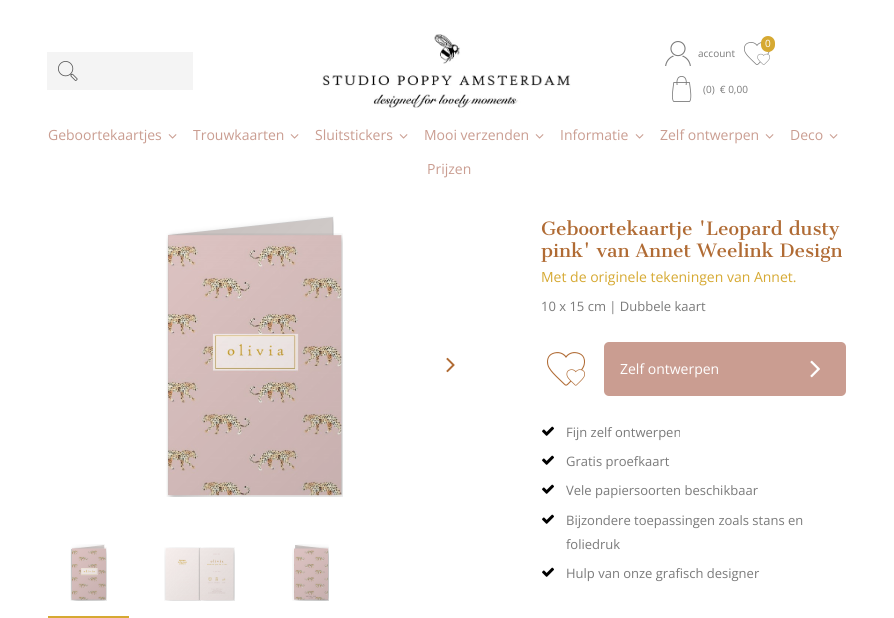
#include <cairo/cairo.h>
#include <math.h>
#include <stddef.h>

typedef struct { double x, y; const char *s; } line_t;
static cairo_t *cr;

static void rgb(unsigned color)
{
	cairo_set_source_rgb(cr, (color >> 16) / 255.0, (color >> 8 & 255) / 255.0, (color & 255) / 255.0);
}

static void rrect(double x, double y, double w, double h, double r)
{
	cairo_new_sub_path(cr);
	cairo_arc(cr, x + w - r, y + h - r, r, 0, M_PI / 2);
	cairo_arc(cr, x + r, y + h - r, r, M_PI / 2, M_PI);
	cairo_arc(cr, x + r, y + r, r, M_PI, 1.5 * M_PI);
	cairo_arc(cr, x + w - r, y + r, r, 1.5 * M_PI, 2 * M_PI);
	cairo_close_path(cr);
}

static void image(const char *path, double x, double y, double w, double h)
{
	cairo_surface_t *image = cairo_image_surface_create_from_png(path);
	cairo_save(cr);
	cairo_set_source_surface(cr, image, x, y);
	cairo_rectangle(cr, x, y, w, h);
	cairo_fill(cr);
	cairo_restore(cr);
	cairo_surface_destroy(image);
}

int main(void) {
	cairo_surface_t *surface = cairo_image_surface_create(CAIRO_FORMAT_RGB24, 894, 618);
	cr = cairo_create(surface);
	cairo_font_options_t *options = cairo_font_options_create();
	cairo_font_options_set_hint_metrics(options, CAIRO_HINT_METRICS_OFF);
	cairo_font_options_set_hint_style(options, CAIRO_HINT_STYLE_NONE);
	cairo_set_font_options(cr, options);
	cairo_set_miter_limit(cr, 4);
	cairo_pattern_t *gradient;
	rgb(0xffffff);
	cairo_paint(cr);
	rgb(0xf4f4f4);
	cairo_rectangle(cr, 47, 52, 146, 38);
	cairo_fill(cr);
	image("img/1.png", 58, 61, 20, 20);
	image("img/2.png", 322, 34, 249, 74);
	image("img/3.png", 744, 42, 26, 23);
	rgb(0xd6a932);
	rrect(761, 36, 14, 16, 7);
	cairo_fill(cr);
	image("img/4.png", 665, 41, 26, 25);
	image("img/5.png", 672, 76, 20, 26);
	image("img/6.png", 168, 134, 9, 5);
	image("img/6.png", 290, 134, 9, 5);
	image("img/6.png", 399, 134, 9, 5);
	image("img/6.png", 535, 134, 9, 5);
	image("img/6.png", 635, 134, 9, 5);
	image("img/6.png", 765, 134, 9, 5);
	image("img/6.png", 829, 134, 9, 5);
	image("img/7.png", 167, 216, 167, 281);
	gradient = cairo_pattern_create_linear(147, 259, 353, 454);
	cairo_pattern_add_color_stop_rgba(gradient, 0, 0, 0, 0, 0.2);
	cairo_pattern_add_color_stop_rgba(gradient, 1, 0, 0, 0, 0.1);
	cairo_set_source(cr, gradient);
	cairo_pattern_destroy(gradient);
	cairo_new_path(cr);
	cairo_move_to(cr, 168, 235);
	cairo_line_to(cr, 333, 217);
	cairo_line_to(cr, 333, 478);
	cairo_line_to(cr, 168, 495);
	cairo_close_path(cr);
	cairo_fill(cr);
	image("img/8.png", 166, 233, 177, 264);
	gradient = cairo_pattern_create_linear(146, 257, 363, 474);
	cairo_pattern_add_color_stop_rgba(gradient, 0, 0, 0, 0, 0);
	cairo_pattern_add_color_stop_rgba(gradient, 1, 0, 0, 0, 0.1);
	cairo_set_source(cr, gradient);
	cairo_pattern_destroy(gradient);
	cairo_rectangle(cr, 168, 235, 174, 260);
	cairo_fill(cr);
	image("img/9.png", 446, 357, 9, 16);
	rgb(0xd6a932);
	cairo_rectangle(cr, 48, 616, 81, 2);
	cairo_fill(cr);
	image("img/10.png", 71, 544, 34, 57);
	gradient = cairo_pattern_create_linear(67, 553, 108, 592);
	cairo_pattern_add_color_stop_rgba(gradient, 0, 0, 0, 0, 0.2);
	cairo_pattern_add_color_stop_rgba(gradient, 1, 0, 0, 0, 0.1);
	cairo_set_source(cr, gradient);
	cairo_pattern_destroy(gradient);
	cairo_new_path(cr);
	cairo_move_to(cr, 71, 549);
	cairo_line_to(cr, 104, 545);
	cairo_line_to(cr, 104, 596);
	cairo_line_to(cr, 71, 600);
	cairo_close_path(cr);
	cairo_fill(cr);
	image("img/11.png", 70, 547, 37, 54);
	gradient = cairo_pattern_create_linear(68, 553, 110, 595);
	cairo_pattern_add_color_stop_rgba(gradient, 0, 0, 0, 0, 0);
	cairo_pattern_add_color_stop_rgba(gradient, 1, 0, 0, 0, 0.1);
	cairo_set_source(cr, gradient);
	cairo_pattern_destroy(gradient);
	cairo_rectangle(cr, 72, 549, 34, 51);
	cairo_fill(cr);
	image("img/12.png", 164, 547, 37, 54);
	image("img/13.png", 198, 547, 37, 54);
	cairo_set_source_rgba(cr, 0, 0, 0, 0.1);
	cairo_rectangle(cr, 199, 548, 1, 52);
	cairo_fill(cr);
	gradient = cairo_pattern_create_linear(169, 544, 230, 604);
	cairo_pattern_add_color_stop_rgba(gradient, 0, 0, 0, 0, 0);
	cairo_pattern_add_color_stop_rgba(gradient, 1, 0, 0, 0, 0.1);
	cairo_set_source(cr, gradient);
	cairo_pattern_destroy(gradient);
	cairo_rectangle(cr, 165, 548, 69, 52);
	cairo_fill(cr);
	image("img/14.png", 295, 544, 34, 57);
	gradient = cairo_pattern_create_linear(291, 549, 332, 596);
	cairo_pattern_add_color_stop_rgba(gradient, 0, 0, 0, 0, 0.2);
	cairo_pattern_add_color_stop_rgba(gradient, 1, 0, 0, 0, 0.1);
	cairo_set_source(cr, gradient);
	cairo_pattern_destroy(gradient);
	cairo_new_path(cr);
	cairo_move_to(cr, 295, 545);
	cairo_line_to(cr, 328, 549);
	cairo_line_to(cr, 328, 600);
	cairo_line_to(cr, 295, 596);
	cairo_close_path(cr);
	cairo_fill(cr);
	image("img/15.png", 292, 547, 37, 54);
	gradient = cairo_pattern_create_linear(290, 553, 332, 595);
	cairo_pattern_add_color_stop_rgba(gradient, 0, 0, 0, 0, 0);
	cairo_pattern_add_color_stop_rgba(gradient, 1, 0, 0, 0, 0.1);
	cairo_set_source(cr, gradient);
	cairo_pattern_destroy(gradient);
	cairo_rectangle(cr, 294, 549, 34, 51);
	cairo_fill(cr);
	image("img/16.png", 547, 352, 38, 34);
	rgb(0xca9d91);
	rrect(604, 342, 242, 54, 5);
	cairo_fill(cr);
	image("img/17.png", 810, 360, 10, 18);
	image("img/18.png", 542, 426, 12, 10);
	image("img/18.png", 542, 455, 12, 10);
	image("img/18.png", 542, 484, 12, 10);
	image("img/18.png", 542, 514, 12, 10);
	image("img/18.png", 542, 567, 12, 10);
	cairo_select_font_face(cr, "Open Sans", CAIRO_FONT_SLANT_NORMAL, CAIRO_FONT_WEIGHT_NORMAL);
	cairo_set_font_size(cr, 10);
	rgb(0xffffff);
	cairo_move_to(cr, 765, 47);
	cairo_show_text(cr, "0");
	rgb(0x7a7a7a);
	cairo_move_to(cr, 698, 57);
	cairo_show_text(cr, "account");
	cairo_move_to(cr, 703, 93);
	cairo_show_text(cr, "(0)  € 0,00");
	cairo_set_font_size(cr, 14);
	rgb(0xca9d91);
	{
		static const line_t items[] = {
			{48, 140, "Geboortekaartjes"},
			{193, 140, "Trouwkaarten"},
			{315, 140, "Sluitstickers"},
			{424, 140, "Mooi verzenden"},
			{560, 140, "Informatie"},
			{660, 140, "Zelf ontwerpen"},
			{790, 140, "Deco"},
			{427, 174, "Prijzen"},
		};
		for (size_t i = 0; i < sizeof items / sizeof *items; i++) {
			cairo_move_to(cr, items[i].x, items[i].y);
			cairo_show_text(cr, items[i].s);
		}
	}
	cairo_select_font_face(cr, "Cantata One", CAIRO_FONT_SLANT_NORMAL, CAIRO_FONT_WEIGHT_NORMAL);
	cairo_set_font_size(cr, 18);
	rgb(0xb06b34);
	cairo_move_to(cr, 541, 235);
	cairo_show_text(cr, "Geboortekaartje 'Leopard dusty");
	cairo_move_to(cr, 541, 257);
	cairo_show_text(cr, "pink' van Annet Weelink Design");
	cairo_select_font_face(cr, "Open Sans", CAIRO_FONT_SLANT_NORMAL, CAIRO_FONT_WEIGHT_NORMAL);
	cairo_set_font_size(cr, 14);
	rgb(0xd6a932);
	cairo_move_to(cr, 541, 282);
	cairo_show_text(cr, "Met de originele tekeningen van Annet.");
	cairo_set_font_size(cr, 13);
	rgb(0x7a7a7a);
	cairo_move_to(cr, 541, 311);
	cairo_show_text(cr, "10 x 15 cm | Dubbele kaart");
	cairo_set_font_size(cr, 14);
	rgb(0xffffff);
	cairo_move_to(cr, 620, 374);
	cairo_show_text(cr, "Zelf ontwerpen");
	cairo_set_font_size(cr, 13);
	rgb(0x7a7a7a);
	{
		static const line_t items[] = {
			{566, 437, "Fijn zelf ontwerpen"},
			{566, 466, "Gratis proefkaart"},
			{566, 495, "Vele papiersoorten beschikbaar"},
			{566, 525, "Bijzondere toepassingen zoals stans en"},
			{566, 549, "foliedruk"},
			{566, 578, "Hulp van onze grafisch designer"},
		};
		for (size_t i = 0; i < sizeof items / sizeof *items; i++) {
			cairo_move_to(cr, items[i].x, items[i].y);
			cairo_show_text(cr, items[i].s);
		}
	}
	cairo_surface_write_to_png(surface, "page.png");
	cairo_font_options_destroy(options);
	cairo_destroy(cr);
	cairo_surface_destroy(surface);
	return 0;
}
